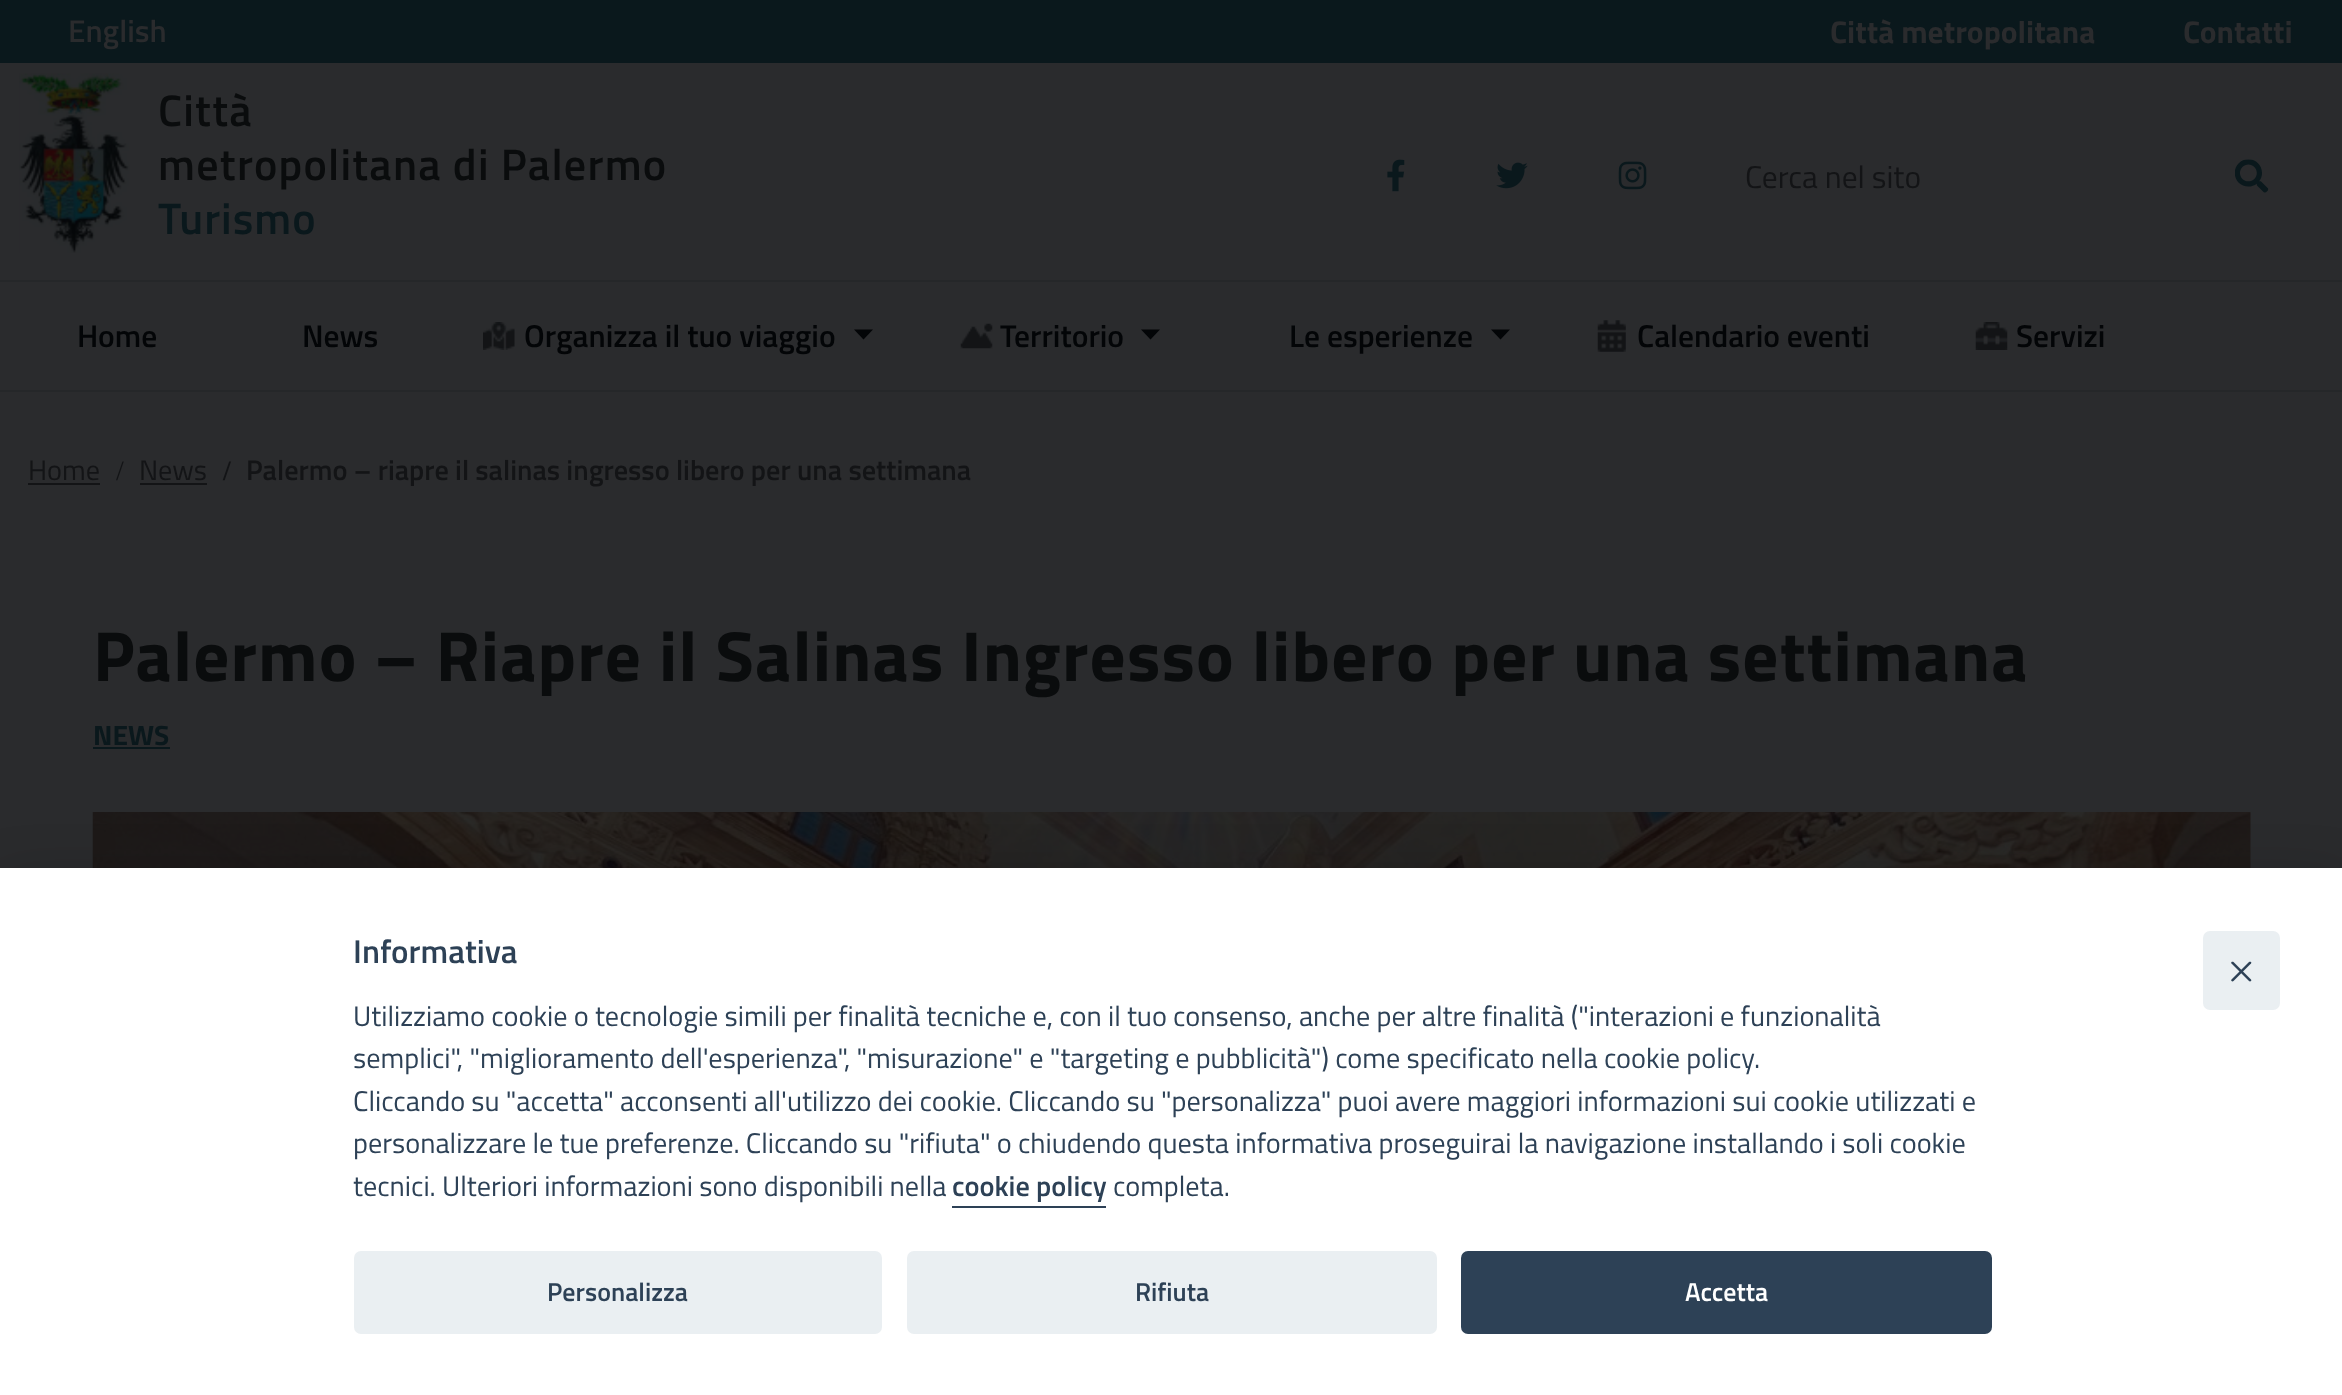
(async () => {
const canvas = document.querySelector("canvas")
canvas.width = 2342
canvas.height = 1395
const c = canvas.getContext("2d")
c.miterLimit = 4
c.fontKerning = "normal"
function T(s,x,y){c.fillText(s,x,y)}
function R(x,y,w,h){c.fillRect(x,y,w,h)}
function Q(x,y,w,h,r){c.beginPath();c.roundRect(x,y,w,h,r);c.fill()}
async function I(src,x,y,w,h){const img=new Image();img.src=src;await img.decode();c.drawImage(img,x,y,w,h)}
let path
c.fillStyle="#2a2b2d"
R(0,0,2342,1395)
c.fillStyle="#0a181c"
R(0,0,2342,63)
c.font="600 31.5px Titillium Web"
c.fillStyle="#2a2b2d"
T("English",68,42)
c.font="bold 31.5px Titillium Web"
T("Città metropolitana",1830,43)
T("Contatti",2183,43)
await I("1.png",19,73,111,180)
c.letterSpacing="1.25px"
c.font="600 44.1px Titillium Web"
c.fillStyle="#0a0c0d"
T("Città",158,126)
T("metropolitana di Palermo",158,180)
c.letterSpacing="1px"
c.fillStyle="#0a181c"
T("Turismo",158,234)
await I("2.png",1387,159,18,33)
await I("3.png",1496,162,32,27)
await I("4.png",1618,161,29,29)
c.letterSpacing="0px"
c.font="31.5px Titillium Web"
c.fillStyle="#131416"
T("Cerca nel sito",1745,188)
await I("5.png",2235,159,34,34)
c.fillStyle="#252729"
R(0,280,2342,2)
R(0,390,2342,2)
c.font="600 31.5px Titillium Web"
c.fillStyle="#030507"
T("Home",77,347)
T("News",302,347)
await I("6.png",483,322,32,28)
T("Organizza il tuo viaggio",524,347)
path = new Path2D("M873 329.5l-9.5 10l-9.5-10z")
c.fill(path)
await I("7.png",960,323,33,26)
T("Territorio",1000,347)
path = new Path2D("M1160 329.5l-9.5 10l-9.5-10z")
c.fill(path)
T("Le esperienze",1289,347)
path = new Path2D("M1510 329.5l-9.5 10l-9.5-10z")
c.fill(path)
await I("8.png",1597,320,29,32)
T("Calendario eventi",1637,347)
await I("9.png",1975,322,33,28)
T("Servizi",2016,347)
c.font="28.35px Titillium Web"
c.fillStyle="#131416"
T("Home",28,480)
R(28,483,72,2)
c.font="28px Liberation Serif"
T("/",116,480)
c.font="28.35px Titillium Web"
T("News",139,480)
R(140,483,67,2)
c.font="bold 28px Liberation Serif"
T("/",223,480)
c.font="600 28.35px Titillium Web"
T("Palermo – riapre il salinas ingresso libero per una settimana",246,480)
c.letterSpacing="1.15px"
c.font="bold 70.9px Titillium Web"
c.fillStyle="#0a0c0d"
T("Palermo – Riapre il Salinas Ingresso libero per una settimana",93,681)
c.letterSpacing="0px"
c.font="bold 28px Titillium Web"
c.fillStyle="#0a181c"
T("NEWS",93,745)
R(93,747,77,2)
await I("10.png",92,812,2159,56)
c.fillStyle="#02020347"
c.filter="blur(29.5px)"
c.beginPath()
c.rect(0,887,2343,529)
c.fill()
c.filter="none"
c.fillStyle="#fff"
R(0,868,2342,527)
c.font="600 33px Titillium Web"
c.fillStyle="#2d4156"
T("Informativa",353,963)
c.font="28.35px Titillium Web"
T("Utilizziamo cookie o tecnologie simili per finalità tecniche e, con il tuo consenso, anche per altre finalità (\"interazioni e funzionalità",353,1026)
T("semplici\", \"miglioramento dell'esperienza\", \"misurazione\" e \"targeting e pubblicità\") come specificato nella cookie policy.",353,1068)
T("Cliccando su \"accetta\" acconsenti all'utilizzo dei cookie. Cliccando su \"personalizza\" puoi avere maggiori informazioni sui cookie utilizzati e",353,1111)
T("personalizzare le tue preferenze. Cliccando su \"rifiuta\" o chiudendo questa informativa proseguirai la navigazione installando i soli cookie",353,1153)
T("tecnici. Ulteriori informazioni sono disponibili nella",353,1196)
c.font="600 28.35px Titillium Web"
T("cookie policy",952,1196)
R(952,1206,154,2)
c.font="28.35px Titillium Web"
T("completa.",1113,1196)
c.fillStyle="#eaeff2"
Q(354,1251,528,83,7)
c.font="600 26px Titillium Web"
c.fillStyle="#2d4156"
T("Personalizza",547,1301)
c.fillStyle="#eaeff2"
Q(907,1251,530,83,7)
c.fillStyle="#2d4156"
T("Rifiuta",1135,1301)
Q(1461,1251,531,83,7)
c.fillStyle="#fff"
T("Accetta",1685,1301)
c.fillStyle="#eaeff2"
Q(2203,931,77,79,7)
c.fillStyle="#2d4156"
path = new Path2D("M2251 962c.5 .5 .5 1 0 1.5l-17.5 17.5c-.5 .5-1.5 .5-2 0c-.5-.5-.5-1 0-1.5l17.5-17.5c.5-.5 1.5-.5 2 0z")
c.fill(path)
path = new Path2D("M2231.5 962c.5-.5 1.5-.5 2 0l17.5 17.5c.5 .5 .5 1 0 1.5c-.5 .5-1.5 .5-2 0l-17.5-17.5c-.5-.5-.5-1 0-1.5z")
c.fill(path)
})()
